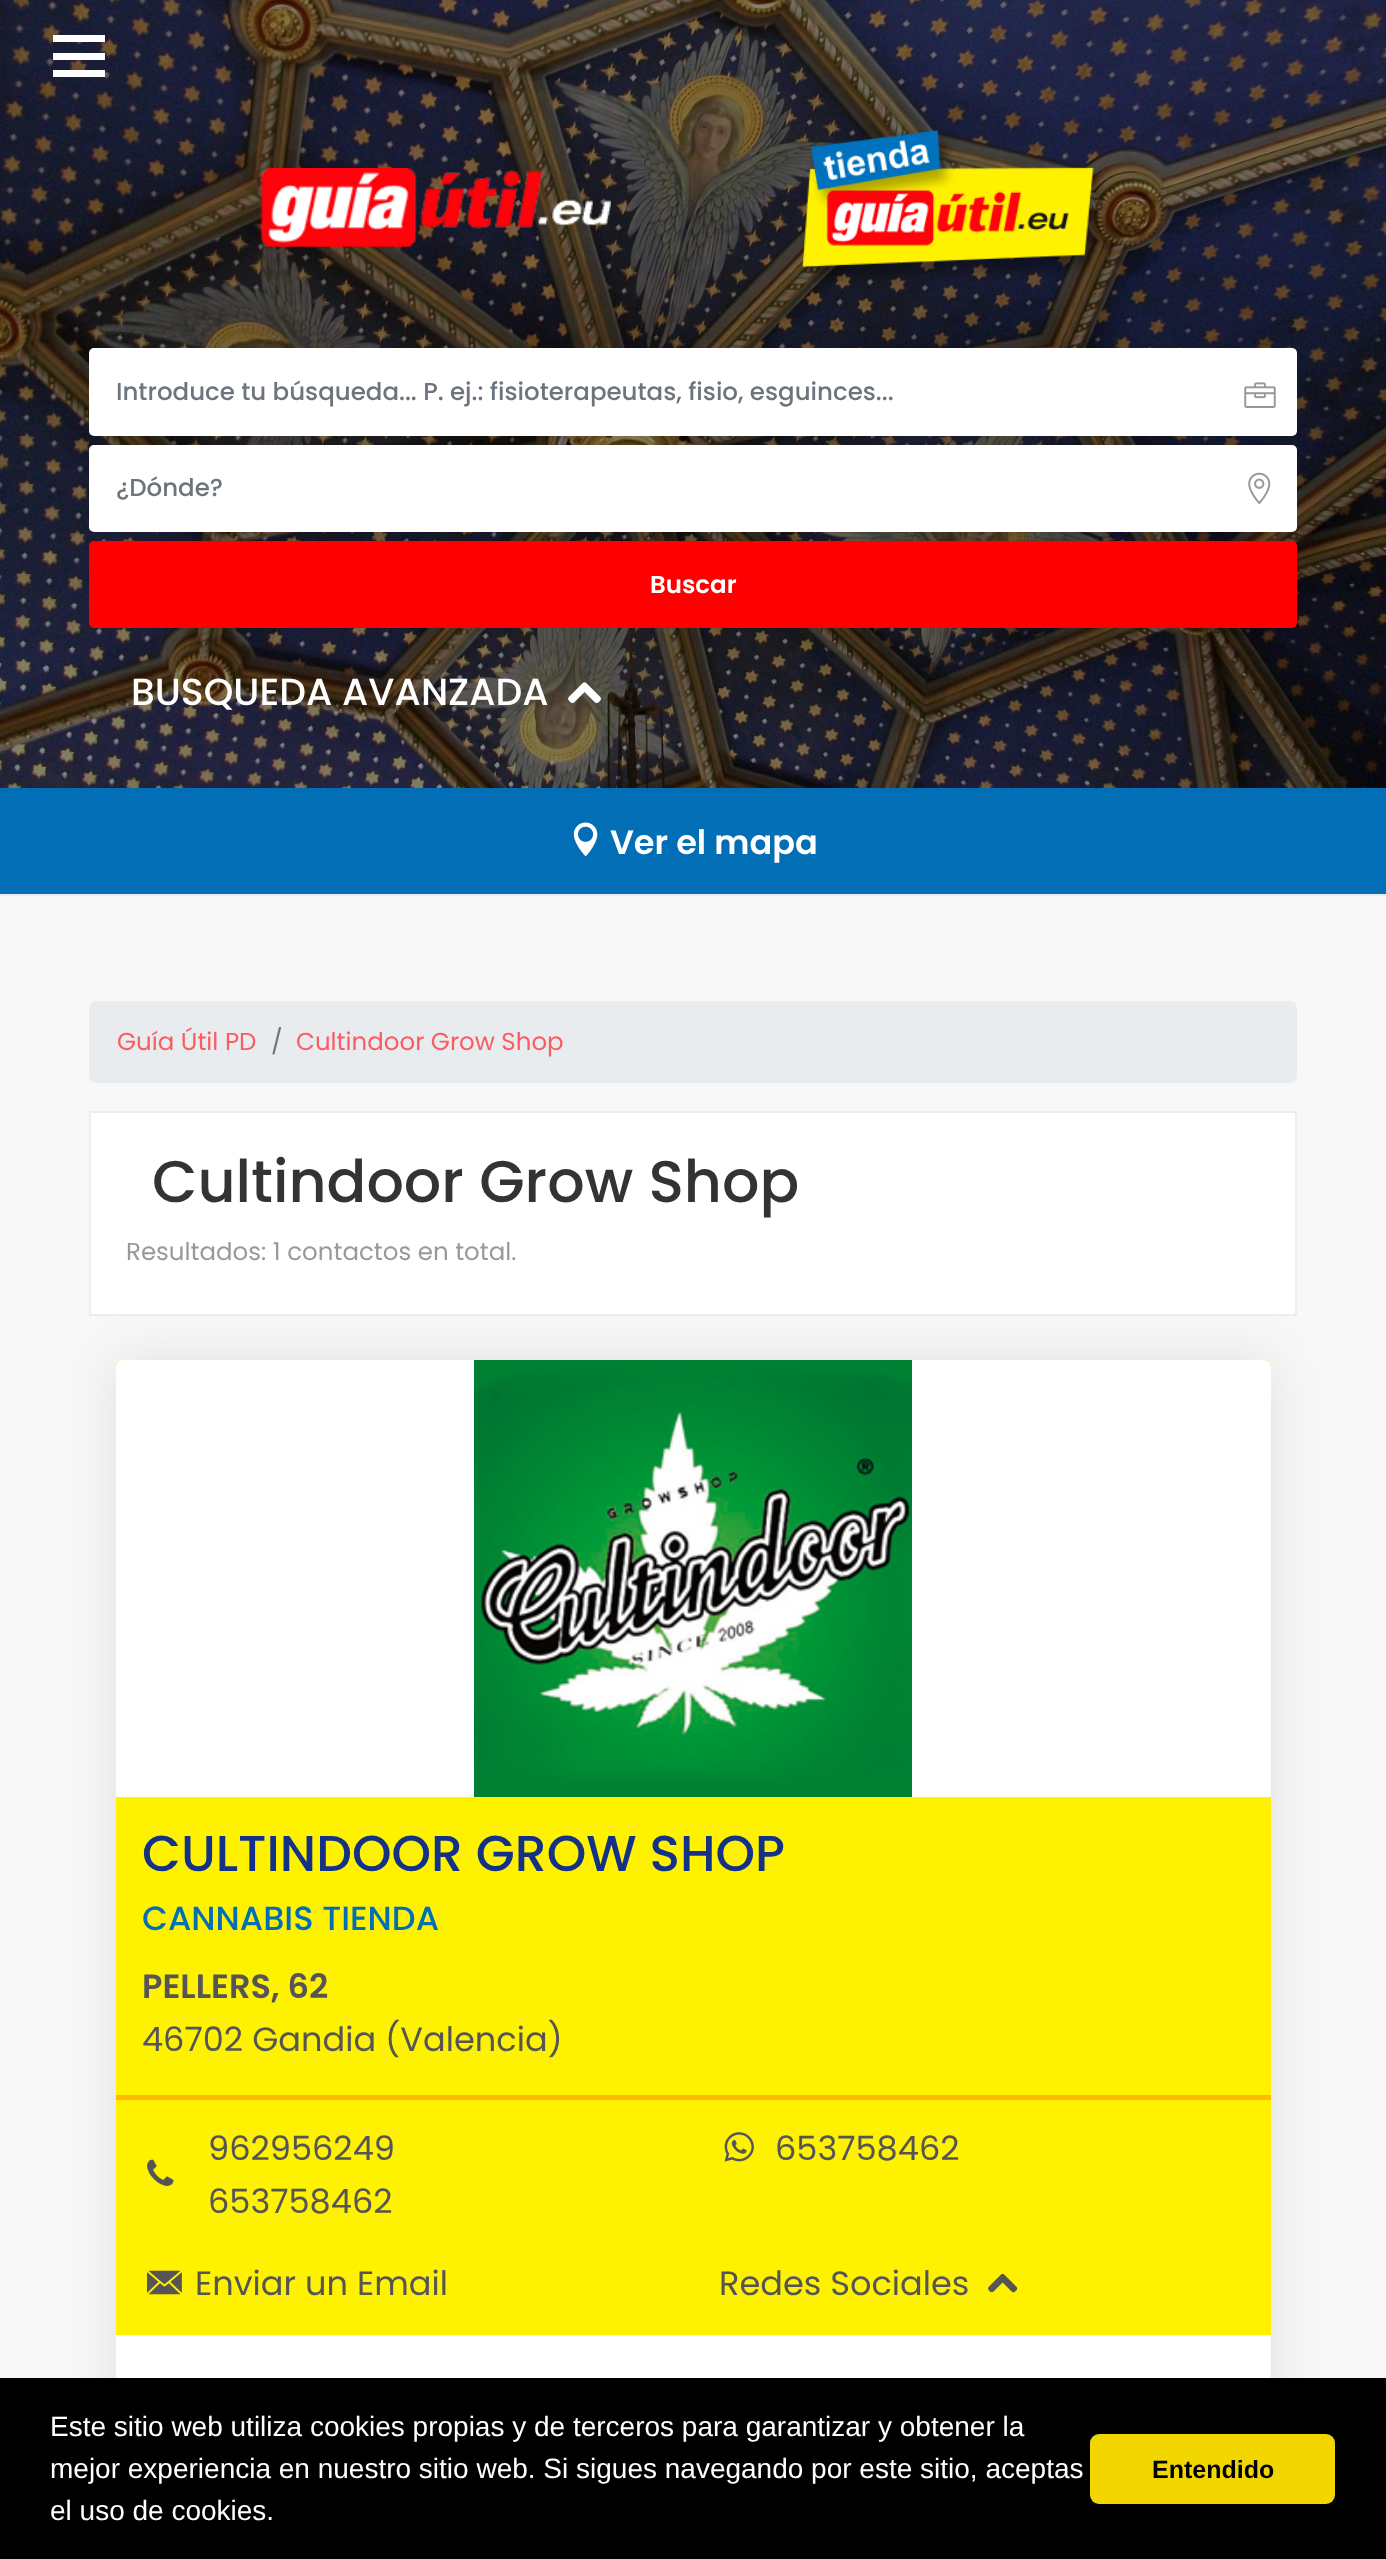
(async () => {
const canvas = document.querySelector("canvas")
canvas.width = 1386
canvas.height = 2559
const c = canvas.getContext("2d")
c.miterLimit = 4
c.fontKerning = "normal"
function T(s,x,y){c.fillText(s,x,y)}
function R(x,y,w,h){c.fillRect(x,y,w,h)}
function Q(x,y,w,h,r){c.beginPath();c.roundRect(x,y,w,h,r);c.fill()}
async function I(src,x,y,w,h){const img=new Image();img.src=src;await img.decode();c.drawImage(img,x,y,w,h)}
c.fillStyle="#f8f8f8"
R(0,0,1386,2559)
await I("1.png",0,0,1386,788)
c.fillStyle="#fff"
R(53,53,52,7)
R(53,35,52,7)
R(53,70,52,7)
await I("2.png",260,168,351,79)
await I("3.png",802,129,302,153)
Q(89,348,1208,88,5)
c.font="500 24.5px Poppins"
c.fillStyle="#6c757d"
T("Introduce tu búsqueda... P. ej.: fisioterapeutas, fisio, esguinces...",116,400)
c.fillStyle="#fff"
Q(1243,348,52,88,5)
await I("4.png",1244,382,32,26)
Q(89,445,1208,87,5)
c.fillStyle="#6c757d"
T("¿Dónde?",116,496)
c.fillStyle="#fff"
Q(1243,445,52,87,5)
await I("5.png",1248,472,23,33)
c.fillStyle="#f00"
Q(89,541,1208,87,5)
c.font="600 24.5px Poppins"
c.fillStyle="#fff"
T("Buscar",650,593)
c.font="500 37.75px Poppins"
T("BUSQUEDA AVANZADA",131,705)
await I("6.png",568,682,33,21)
c.fillStyle="#ededed"
R(0,894,1386,2)
c.fillStyle="#016eb6"
R(0,788,1386,106)
await I("7.png",573,822,25,34)
c.font="600 33.6px Poppins"
c.fillStyle="#fff"
T("Ver el mapa",610,854)
c.fillStyle="#e9ecef"
Q(89,1001,1208,82,7)
c.font="24.5px Poppins"
c.fillStyle="#fc5b62"
T("Guía Útil PD",117,1050)
c.fillStyle="#6c757d"
T("/",271,1050)
c.fillStyle="#fc5b62"
T("Cultindoor Grow Shop",296,1050)
c.fillStyle="#fff"
c.beginPath()
c.rect(90,1112,1206,203)
c.fill()
c.strokeStyle="#ededed"
c.lineWidth=2
c.stroke()
c.font="500 58.75px Poppins"
c.fillStyle="#333"
T("Cultindoor Grow Shop",152,1202)
c.font="24.5px Poppins"
c.fillStyle="#999"
T("Resultados: 1 contactos en total.",126,1260)
c.fillStyle="#0000001a"
c.filter="blur(26px)"
c.beginPath()
c.roundRect(116,1360,1155,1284,7)
c.fill()
c.filter="none"
c.fillStyle="#fff200"
Q(116,1360,1155,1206,7)
c.fillStyle="#fff"
c.beginPath()
c.roundRect(116,1360,1155,437,[7,7,0,0])
c.fill()
await I("8.png",474,1360,438,437)
c.font="500 50.4px Poppins"
c.fillStyle="#123187"
T("CULTINDOOR GROW SHOP",142,1871)
c.font="500 33.6px Poppins"
c.fillStyle="#016eb6"
T("CANNABIS TIENDA",142,1930)
c.font="600 33.6px Poppins"
c.fillStyle="#555"
T("PELLERS, 62",142,1998)
c.font="33.6px Poppins"
T("46702 Gandia (Valencia)",142,2051)
c.fillStyle="#fb0"
R(116,2095,1155,5)
await I("9.png",147,2159,27,27)
c.fillStyle="#555"
T("962956249",208,2160)
T("653758462",208,2213)
await I("10.png",724,2132,30,30)
T("653758462",775,2160)
await I("11.png",147,2270,35,25)
T("Enviar un Email",195,2295)
T("Redes Sociales",719,2295)
await I("12.png",988,2273,30,20)
c.fillStyle="#fff"
R(116,2335,1155,43)
c.fillStyle="#000"
R(0,2378,1386,181)
c.font="28px Liberation Sans"
c.fillStyle="#fff"
T("Este sitio web utiliza cookies propias y de terceros para garantizar y obtener la",50,2436)
T("mejor experiencia en nuestro sitio web. Si sigues navegando por este sitio, aceptas",50,2478)
T("el uso de cookies.",50,2520)
c.fillStyle="#f1d600"
Q(1090,2434,245,70,9)
c.font="bold 25px Liberation Sans"
c.fillStyle="#000"
T("Entendido",1152,2478)
})()
